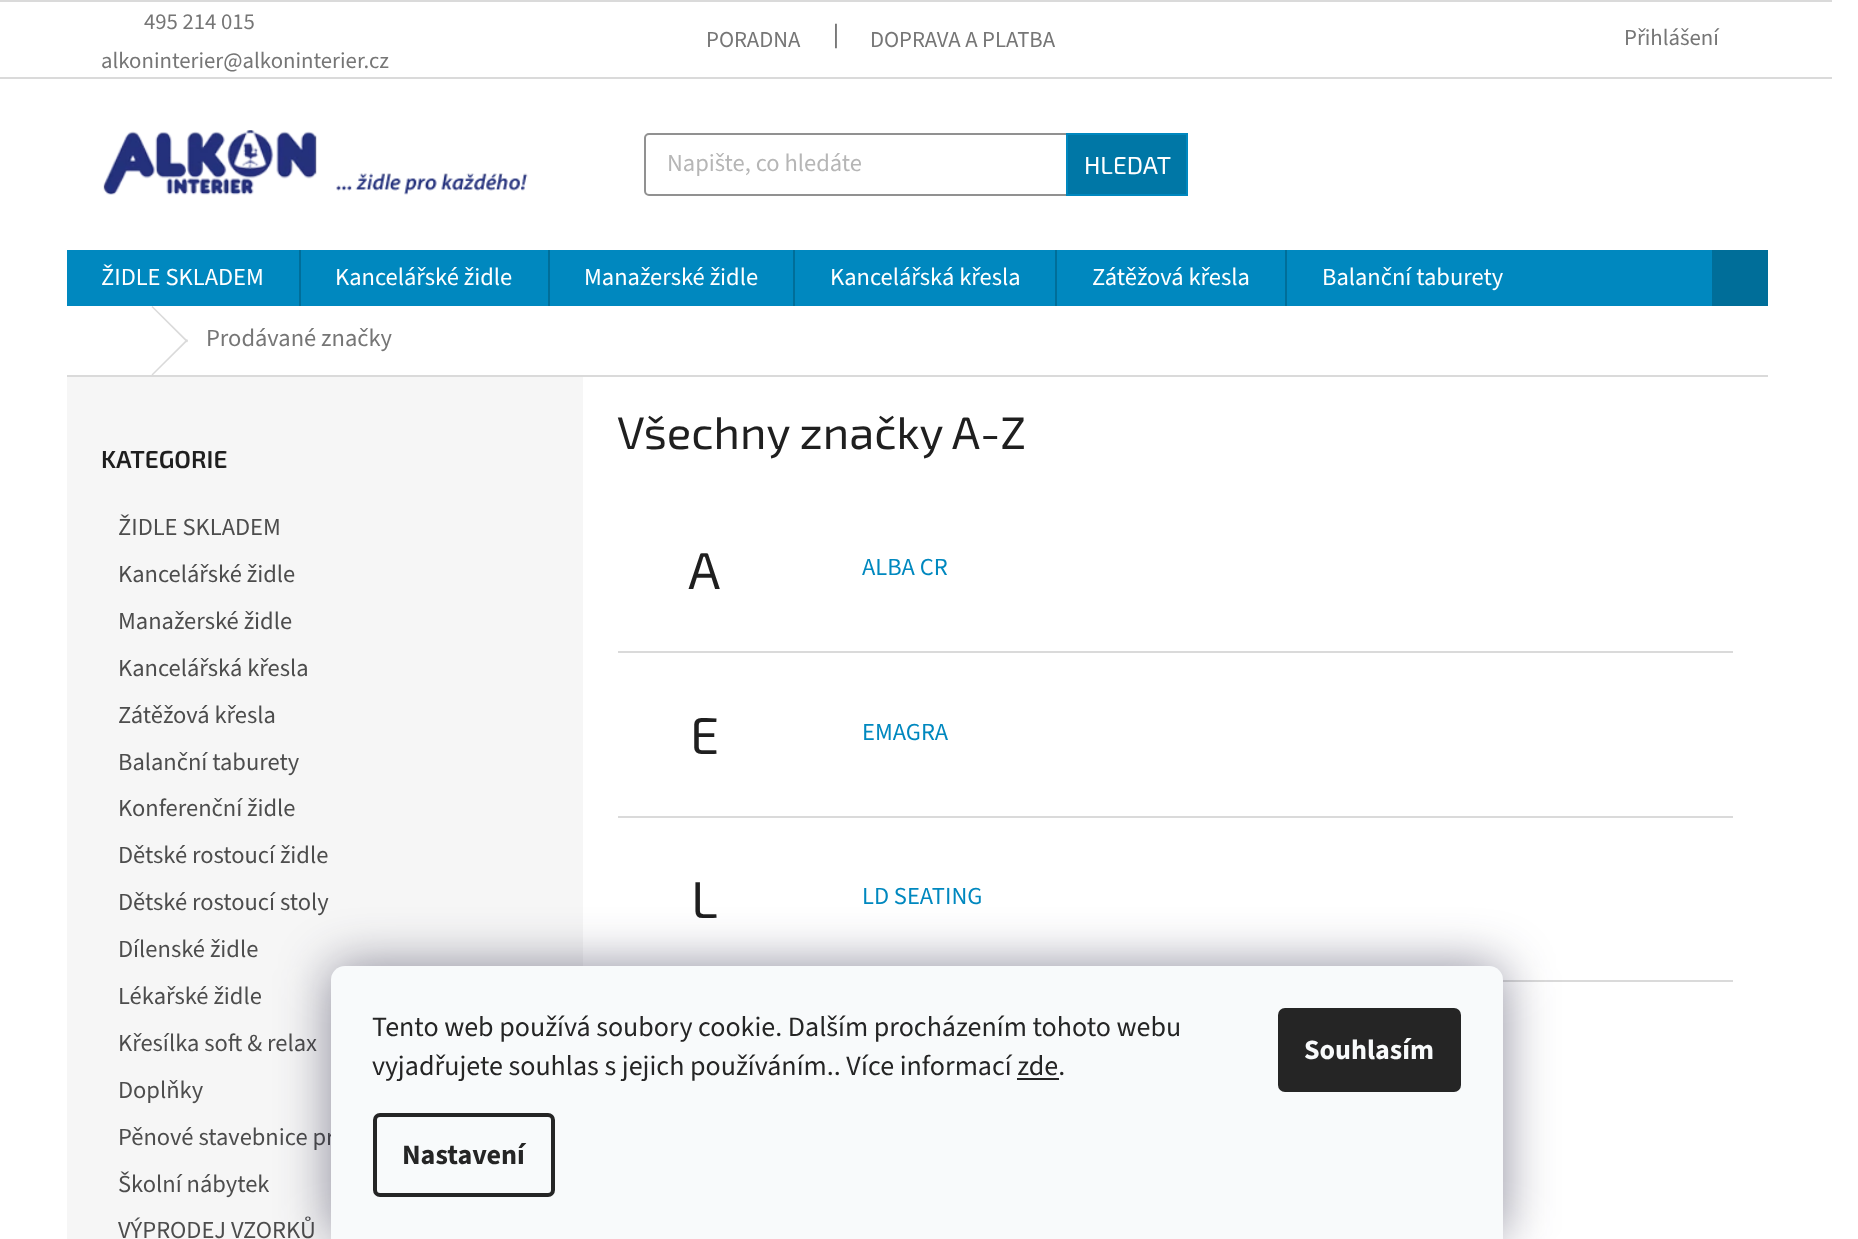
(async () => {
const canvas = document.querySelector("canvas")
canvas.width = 1858
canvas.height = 1239
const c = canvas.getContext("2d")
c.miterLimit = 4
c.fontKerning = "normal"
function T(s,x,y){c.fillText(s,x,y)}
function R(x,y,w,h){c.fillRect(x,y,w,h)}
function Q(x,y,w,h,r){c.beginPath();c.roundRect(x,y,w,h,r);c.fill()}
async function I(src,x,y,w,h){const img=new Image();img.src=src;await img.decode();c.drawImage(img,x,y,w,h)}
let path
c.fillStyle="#fff"
R(0,0,1858,1239)
c.fillStyle="#dadada"
R(0,0,1832,2)
R(0,77,1832,2)
c.font="22.75px 'Source Sans 3'"
c.fillStyle="#767676"
T("495 214 015",144,29)
T("alkoninterier@alkoninterier.cz",101,68)
T("PORADNA",706,47)
c.font="24.5px 'Source Sans 3'"
c.fillStyle="#4d4d4d"
T("|",833,42)
c.font="22.75px 'Source Sans 3'"
c.fillStyle="#767676"
T("DOPRAVA A PLATBA",870,47)
T("Přihlášení",1624,45)
await I("1.png",103,130,425,65)
c.beginPath()
c.roundRect(645,134,542,61,4)
c.strokeStyle="#919191"
c.lineWidth=2
c.stroke()
c.font="24.5px 'Source Sans 3'"
c.fillStyle="#b6b6b6"
T("Napište, co hledáte",667,171)
c.fillStyle="#0077a6"
c.beginPath()
c.rect(1067,134,120,61)
c.fill()
c.strokeStyle="#0088bf"
c.stroke()
c.font="24.5px 'Exo 2'"
c.fillStyle="#fff"
T("HLEDAT",1084,174)
c.fillStyle="#0088bf"
R(67,250,1645,56)
c.font="24.5px 'Source Sans 3'"
c.fillStyle="#fff"
T("ŽIDLE SKLADEM",101,285)
c.fillStyle="#006e99"
R(299,250,2,56)
c.fillStyle="#fff"
T("Kancelářské židle",335,285)
c.fillStyle="#006e99"
R(548,250,2,56)
c.fillStyle="#fff"
T("Manažerské židle",584,285)
c.fillStyle="#006e99"
R(793,250,2,56)
c.fillStyle="#fff"
T("Kancelářská křesla",830,285)
c.fillStyle="#006e99"
R(1055,250,2,56)
c.fillStyle="#fff"
T("Zátěžová křesla",1092,285)
c.fillStyle="#006e99"
R(1285,250,2,56)
c.fillStyle="#fff"
T("Balanční taburety",1322,285)
c.fillStyle="#006e99"
R(1712,250,56,56)
c.fillStyle="#dadada"
R(67,375,1701,2)
path = new Path2D("M151.5 307l1-1l35.5 35l-1 1.5z")
c.fill(path)
path = new Path2D("M187 339l1 1.5l-35.5 35l-1-1z")
c.fill(path)
c.fillStyle="#767676"
T("Prodávané značky",206,346)
c.fillStyle="#f6f6f6"
R(67,377,516,862)
c.font="600 24.5px 'Exo 2'"
c.fillStyle="#1f1f1f"
T("KATEGORIE",101,468)
c.font="24.5px 'Source Sans 3'"
c.fillStyle="#4d4d4d"
T("ŽIDLE SKLADEM",118,535)
T("Kancelářské židle",118,582)
T("Manažerské židle",118,629)
T("Kancelářská křesla",118,676)
T("Zátěžová křesla",118,723)
T("Balanční taburety",118,770)
T("Konferenční židle",118,816)
T("Dětské rostoucí židle",118,863)
T("Dětské rostoucí stoly",118,910)
T("Dílenské židle",118,957)
T("Lékařské židle",118,1004)
T("Křesílka soft & relax",118,1051)
T("Doplňky",118,1098)
T("Pěnové stavebnice pr",118,1145)
T("Školní nábytek",118,1192)
T("VÝPRODEJ VZORKŮ",118,1238)
c.font="45.5px 'Exo 2'"
c.fillStyle="#1f1f1f"
T("Všechny značky A-Z",617,449)
c.fillStyle="#dadada"
R(618,651,1115,2)
c.font="52px 'Exo 2'"
c.fillStyle="#1f1f1f"
T("A",688,589)
c.font="24.5px 'Source Sans 3'"
c.fillStyle="#0088bf"
T("ALBA CR",862,575)
c.fillStyle="#dadada"
R(618,816,1115,2)
c.font="52px 'Exo 2'"
c.fillStyle="#1f1f1f"
T("E",690,754)
c.font="24.5px 'Source Sans 3'"
c.fillStyle="#0088bf"
T("EMAGRA",862,740)
c.fillStyle="#dadada"
R(1503,980,230,2)
c.font="52px 'Exo 2'"
c.fillStyle="#1f1f1f"
T("L",691,918)
c.font="24.5px 'Source Sans 3'"
c.fillStyle="#0088bf"
T("LD SEATING",862,904)
c.fillStyle="#1b193980"
c.filter="blur(26px)"
c.beginPath()
c.roundRect(331,966,1172,273,14)
c.fill()
c.filter="none"
c.fillStyle="#f8fafb"
c.beginPath()
c.roundRect(331,966,1172,273,[14,14,0,0])
c.fill()
c.font="28px 'Source Sans 3'"
c.fillStyle="#252525"
T("Tento web používá soubory cookie. Dalším procházením tohoto webu",372,1036)
T("vyjadřujete souhlas s jejich používáním.. Více informací zde.",372,1075)
R(1017,1078,42,2)
c.beginPath()
c.roundRect(375,1115,178,80,5)
c.strokeStyle="#252525"
c.lineWidth=4
c.stroke()
c.font="bold 28px 'Source Sans 3'"
T("Nastavení",402,1164)
Q(1278,1008,183,84,7)
c.fillStyle="#f8fafb"
T("Souhlasím",1304,1059)
})()
